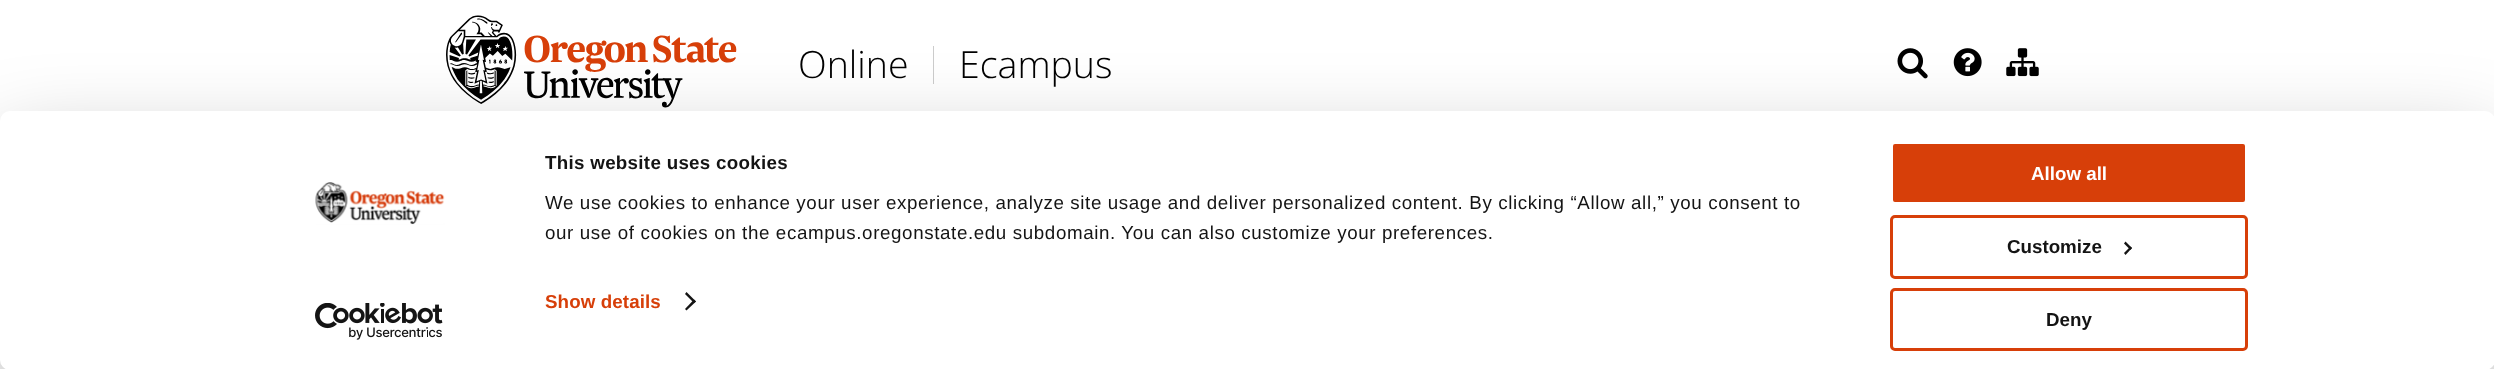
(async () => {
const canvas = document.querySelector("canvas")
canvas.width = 2494
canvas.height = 369
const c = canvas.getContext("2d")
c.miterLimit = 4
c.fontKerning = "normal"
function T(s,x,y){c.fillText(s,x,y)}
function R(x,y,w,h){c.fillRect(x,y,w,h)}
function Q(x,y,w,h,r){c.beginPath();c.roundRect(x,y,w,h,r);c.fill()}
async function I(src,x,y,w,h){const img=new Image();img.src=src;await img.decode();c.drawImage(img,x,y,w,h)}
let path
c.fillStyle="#fff"
R(0,0,2494,369)
await I("1.png",446,15,291,93)
c.font="300 37.5px Open Sans"
c.fillStyle="#000"
T("Online",798,78)
c.fillStyle="#ccc"
R(933,46,1,38)
c.fillStyle="#000"
T("Ecampus",959,78)
await I("2.png",1897,48,31,31)
await I("3.png",1953,48,29,29)
await I("4.png",2006,48,33,29)
c.fillStyle="#0000004d"
c.filter="blur(44px)"
c.beginPath()
c.roundRect(0,149,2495,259,10)
c.fill()
c.filter="none"
c.fillStyle="#fff"
Q(0,111,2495,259,10)
await I("5.png",315,182,130,43)
await I("6.png",315,303,128,37)
c.letterSpacing="0.3px"
c.font="bold 18.75px Liberation Sans"
c.fillStyle="#141414"
T("This website uses cookies",545,169)
c.letterSpacing="0.62px"
c.font="18.75px Liberation Sans"
T("We use cookies to enhance your user experience, analyze site usage and deliver personalized content. By clicking “Allow all,” you consent to",545,209)
T("our use of cookies on the ecampus.oregonstate.edu subdomain. You can also customize your preferences.",545,239)
c.letterSpacing="0.1px"
c.font="bold 18.75px Liberation Sans"
c.fillStyle="#d73f09"
T("Show details",545,308)
c.fillStyle="#141414"
path = new Path2D("M686.5 292l9.5 9.5l-2 1.5l-9-9z")
c.fill(path)
path = new Path2D("M694 299.5l2 2l-9.5 9l-1.5-1.5z")
c.fill(path)
c.fillStyle="#d73f09"
c.beginPath()
c.roundRect(1891.5,142.5,355,61,3.5)
c.fill()
c.strokeStyle="#fff"
c.lineWidth=3
c.stroke()
c.letterSpacing="0px"
c.fillStyle="#fff"
T("Allow all",2031,180)
c.beginPath()
c.roundRect(1891.5,216.5,355,61,3.5)
c.strokeStyle="#d73f09"
c.stroke()
c.fillStyle="#141414"
T("Customize",2007,253)
path = new Path2D("M2125.5 241.5l6.5 6.5l-1.5 2l-6.5-6.5z")
c.fill(path)
path = new Path2D("M2130.5 246.5l1.5 1.5l-6.5 7l-1.5-2z")
c.fill(path)
c.beginPath()
c.roundRect(1891.5,289.5,355,60,3.5)
c.stroke()
T("Deny",2046,326)
})()
